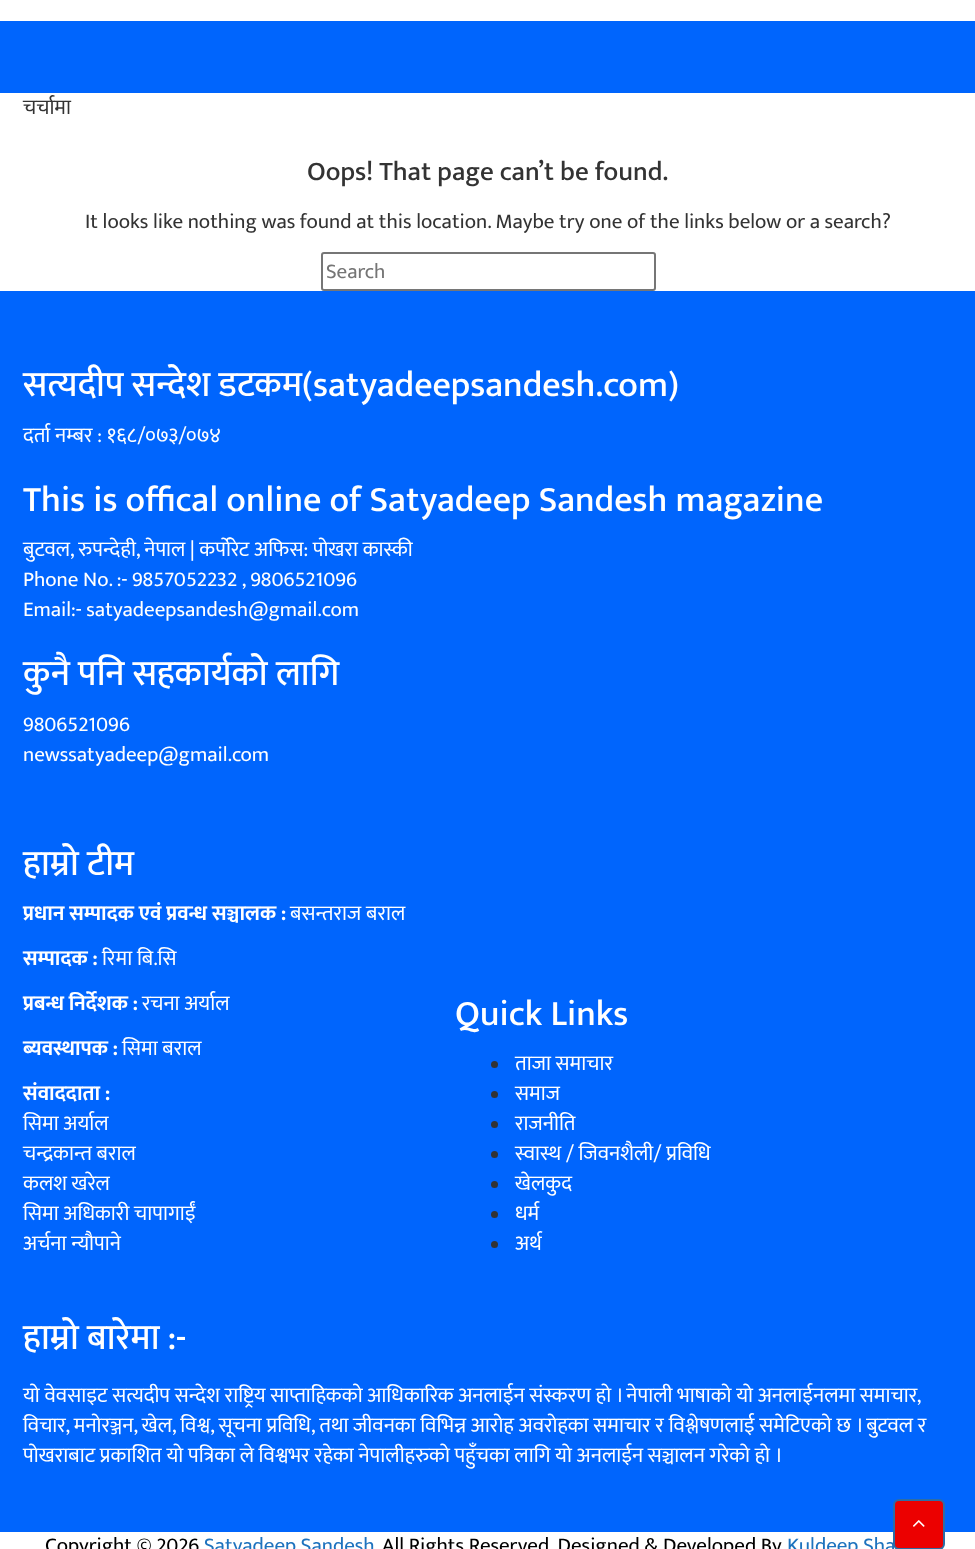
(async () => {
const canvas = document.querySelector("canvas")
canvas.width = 975
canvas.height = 1549
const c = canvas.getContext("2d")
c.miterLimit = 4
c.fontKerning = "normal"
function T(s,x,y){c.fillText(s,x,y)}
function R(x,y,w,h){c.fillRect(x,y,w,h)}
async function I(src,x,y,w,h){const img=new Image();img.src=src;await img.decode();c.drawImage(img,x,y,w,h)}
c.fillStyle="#fff"
R(0,0,975,1549)
c.fillStyle="#0065fd"
R(0,21,975,72)
c.font="21px Mukta"
c.fillStyle="#333"
T("चर्चामा",23,114)
c.font="500 27px Mukta"
T("Oops! That page can’t be found.",307,180)
c.font="21px Mukta"
T("It looks like nothing was found at this location. Maybe try one of the links below or a search?",85,228)
c.beginPath()
c.roundRect(322,253,333,37,2)
c.strokeStyle="#767676"
c.lineWidth=2
c.stroke()
c.fillStyle="#757575"
T("Search",326,278)
c.fillStyle="#0065fd"
R(0,291,975,1241)
c.font="500 36px Mukta"
c.fillStyle="#fff"
T("सत्यदीप सन्देश डटकम(satyadeepsandesh.com)",23,396)
c.font="21px Mukta"
T("दर्ता नम्बर : १६८/०७३/०७४",23,442)
c.font="500 36px Mukta"
T("This is offical online of Satyadeep Sandesh magazine",23,511)
c.font="21px Mukta"
T("बुटवल, रुपन्देही, नेपाल | कर्पोरेट अफिस: पोखरा कास्की",23,556)
T("Phone No. :- 9857052232 , 9806521096",23,586)
T("Email:- satyadeepsandesh@gmail.com",23,616)
c.font="500 36px Mukta"
T("कुनै पनि सहकार्यको लागि",23,685)
c.font="21px Mukta"
T("9806521096",23,731)
T("newssatyadeep@gmail.com",23,761)
c.font="500 36px Mukta"
T("हाम्रो टीम",23,875)
c.font="bold 21px Mukta"
T("प्रधान सम्पादक एवं प्रवन्ध सञ्चालक :",23,920)
c.font="21px Mukta"
T("बसन्तराज बराल",290,920)
c.font="bold 21px Mukta"
T("सम्पादक :",23,965)
c.font="21px Mukta"
T("रिमा बि.सि",102,965)
c.font="bold 21px Mukta"
T("प्रबन्ध निर्देशक :",23,1010)
c.font="21px Mukta"
T("रचना अर्याल",142,1010)
c.font="bold 21px Mukta"
T("ब्यवस्थापक :",23,1055)
c.font="21px Mukta"
T("सिमा बराल",122,1055)
c.font="bold 21px Mukta"
T("संवाददाता :",23,1100)
c.font="21px Mukta"
T("सिमा अर्याल",23,1130)
T("चन्द्रकान्त बराल",23,1160)
T("कलश खरेल",23,1190)
T("सिमा अधिकारी चापागाईं",23,1220)
T("अर्चना न्यौपाने",23,1250)
c.font="500 36px Mukta"
T("Quick Links",455,1025)
c.fillStyle="#333"
c.beginPath()
c.arc(494.5,1064.5,3.5,0,7)
c.fill()
c.font="21px Mukta"
c.fillStyle="#fff"
T("ताजा समाचार",515,1070)
c.fillStyle="#333"
c.beginPath()
c.arc(494.5,1094.5,3.5,0,7)
c.fill()
c.fillStyle="#fff"
T("समाज",515,1100)
c.fillStyle="#333"
c.beginPath()
c.arc(494.5,1124.5,3.5,0,7)
c.fill()
c.fillStyle="#fff"
T("राजनीति",515,1130)
c.fillStyle="#333"
c.beginPath()
c.arc(494.5,1154.5,3.5,0,7)
c.fill()
c.fillStyle="#fff"
T("स्वास्थ / जिवनशैली/ प्रविधि",515,1160)
c.fillStyle="#333"
c.beginPath()
c.arc(494.5,1184.5,3.5,0,7)
c.fill()
c.fillStyle="#fff"
T("खेलकुद",515,1190)
c.fillStyle="#333"
c.beginPath()
c.arc(494.5,1214.5,3.5,0,7)
c.fill()
c.fillStyle="#fff"
T("धर्म",515,1220)
c.fillStyle="#333"
c.beginPath()
c.arc(494.5,1244.5,3.5,0,7)
c.fill()
c.fillStyle="#fff"
T("अर्थ",515,1250)
c.font="500 36px Mukta"
T("हाम्रो बारेमा :-",23,1349)
c.font="21px Mukta"
T("यो वेवसाइट सत्यदीप सन्देश राष्ट्रिय साप्ताहिकको आधिकारिक अनलाईन संस्करण हो । नेपाली भाषाको यो अनलाईनलमा समाचार,",23,1402)
T("विचार, मनोरञ्जन, खेल, विश्व, सूचना प्रविधि, तथा जीवनका विभिन्न आरोह अवरोहका समाचार र विश्लेषणलाई समेटिएको छ । बुटवल र",23,1432)
T("पोखराबाट प्रकाशित यो पत्रिका ले विश्वभर रहेका नेपालीहरुको पहुँचका लागि यो अनलाईन सञ्चालन गरेको हो ।",23,1462)
c.fillStyle="#000"
T("Copyright © 2026",45,1552)
c.fillStyle="#1e73be"
T("Satyadeep Sandesh",204,1552)
c.fillStyle="#000"
T("All Rights Reserved. Designed & Developed By",382,1552)
c.fillStyle="#1e73be"
T("Kuldeep Sha",787,1552)
c.fillStyle="#ec0000"
c.beginPath()
c.roundRect(894,1500,50,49,5)
c.fill()
c.strokeStyle="#2e6da4"
c.stroke()
await I("1.png",913,1520,12,7)
})()
